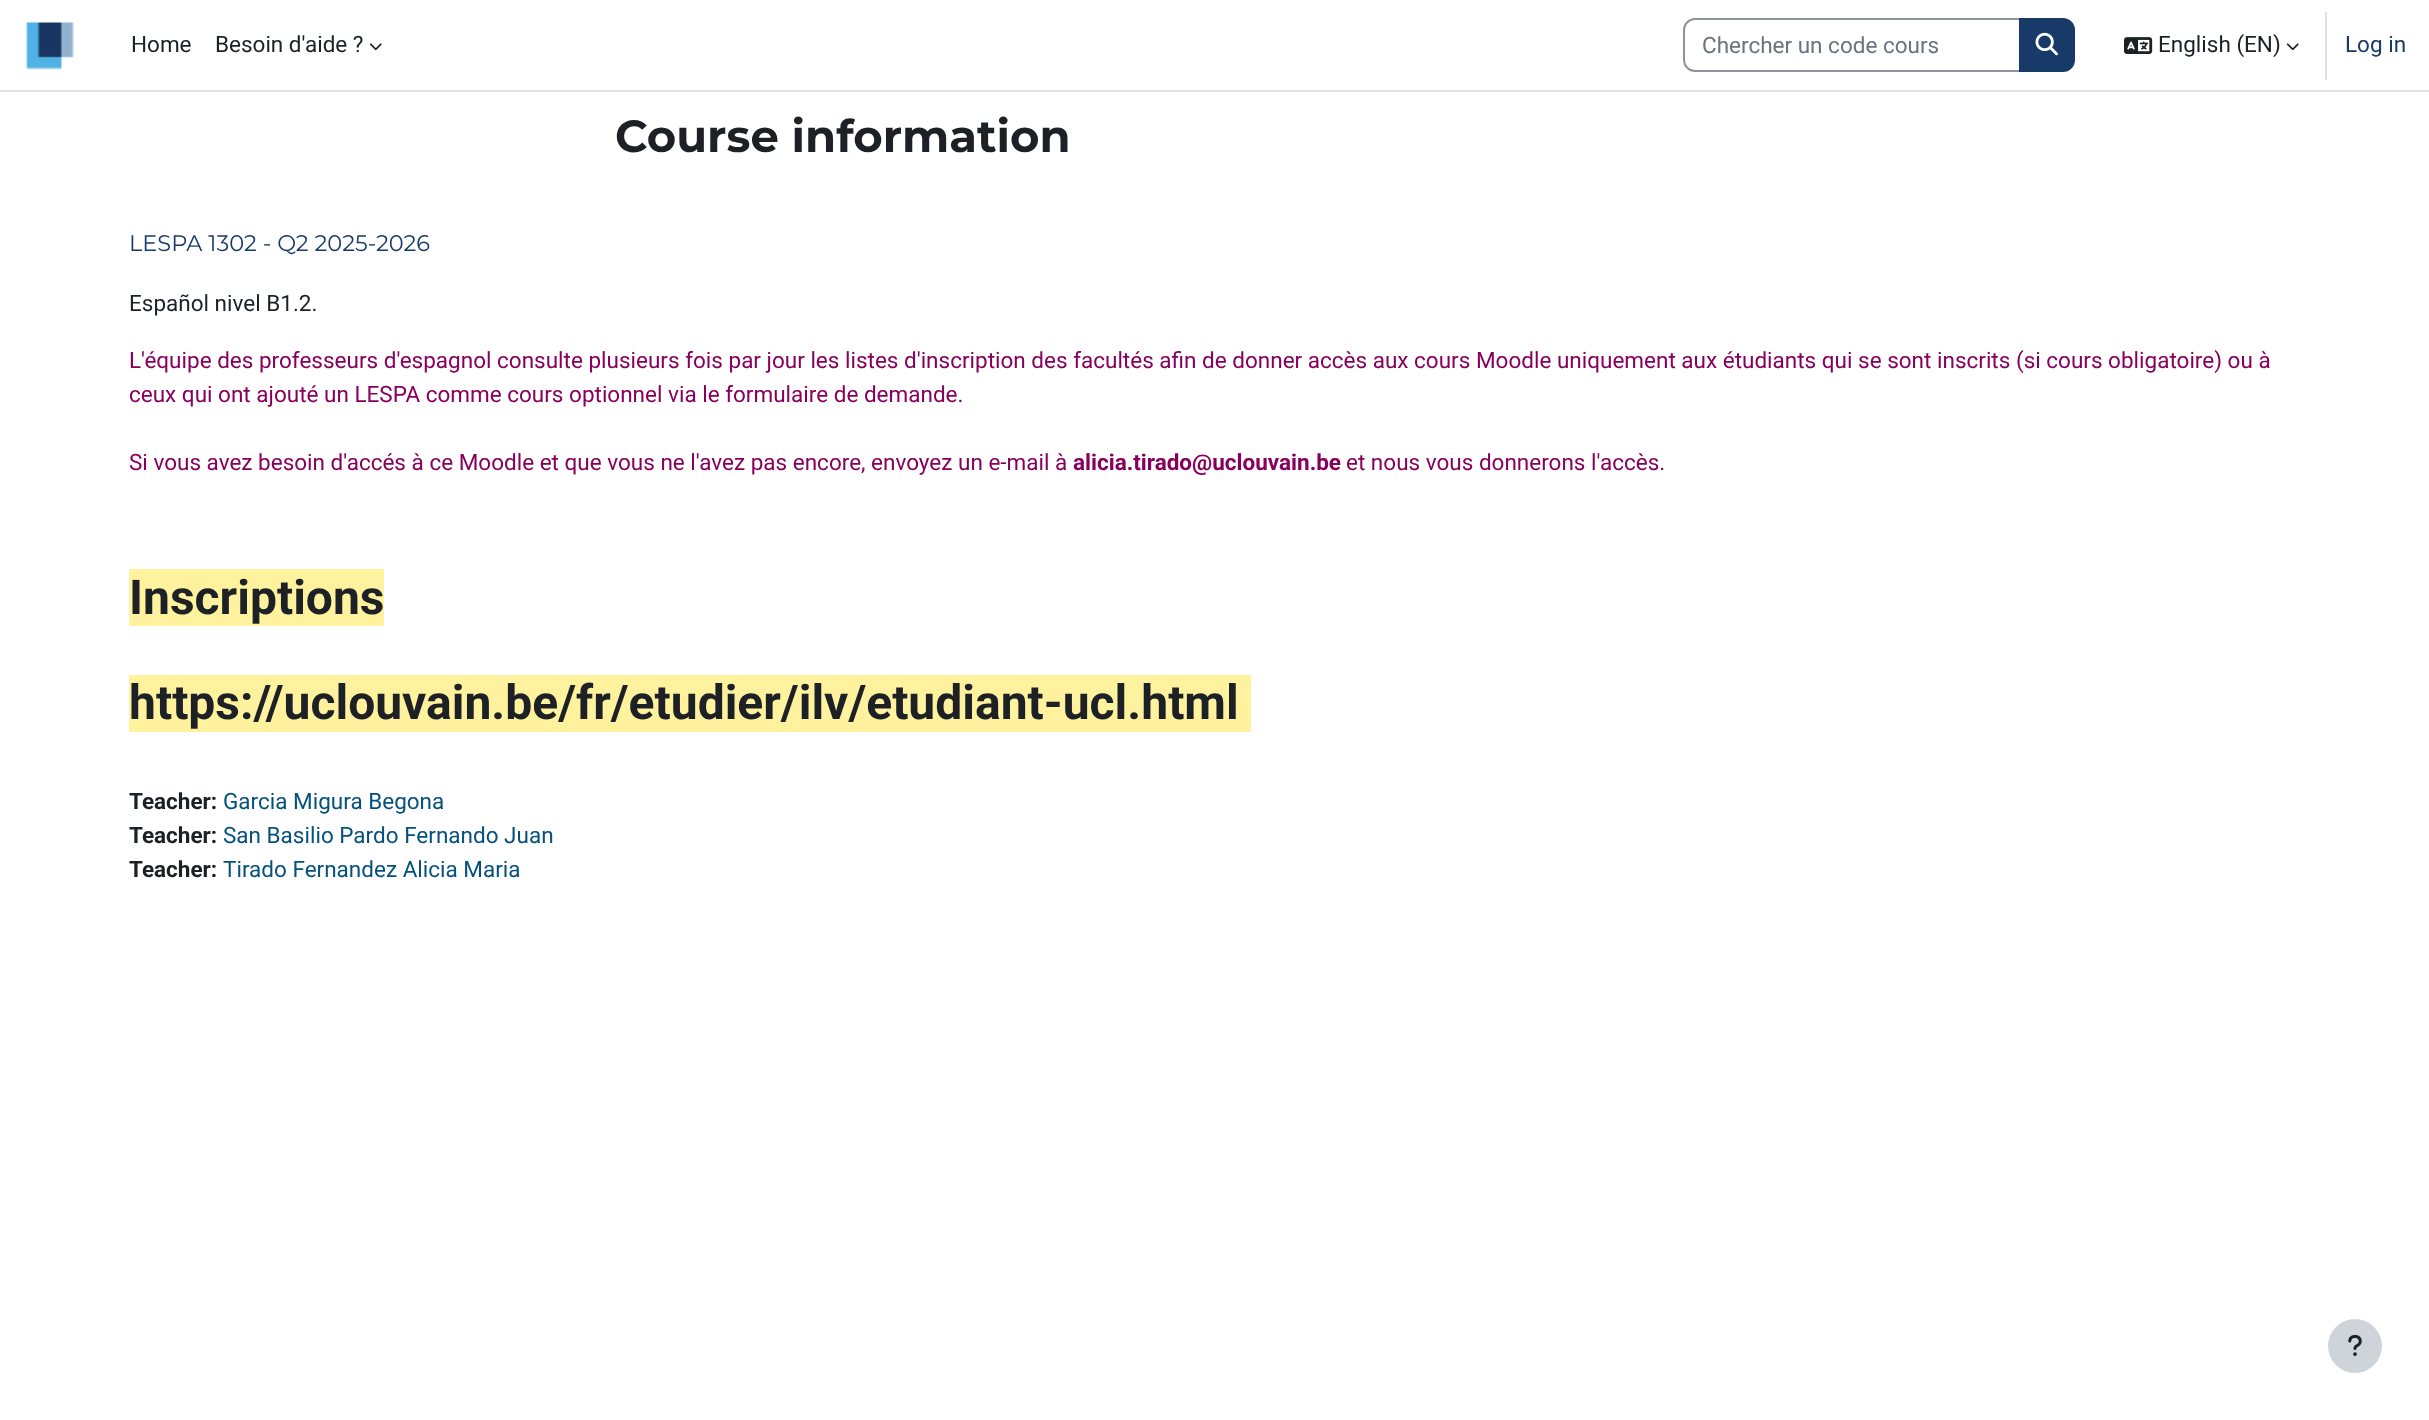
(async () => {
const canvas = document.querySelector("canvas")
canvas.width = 2429
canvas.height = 1420
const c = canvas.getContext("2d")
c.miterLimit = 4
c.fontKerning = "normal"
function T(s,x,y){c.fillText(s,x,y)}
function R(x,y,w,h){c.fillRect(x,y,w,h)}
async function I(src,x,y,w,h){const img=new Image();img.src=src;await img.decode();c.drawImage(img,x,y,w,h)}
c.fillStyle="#fff"
R(0,0,2429,1420)
c.fillStyle="#dee2e6"
R(0,90,2429,2)
await I("1.png",25,22,49,48)
c.font="22.5px Roboto"
c.fillStyle="#1d2125"
T("Home",131,52)
T("Besoin d'aide ?",215,52)
await I("2.png",369,43,13,8)
c.beginPath()
c.roundRect(1684,19,336,52,[11,0,0,11])
c.strokeStyle="#8f959e"
c.lineWidth=2
c.stroke()
c.fillStyle="#6a737b"
T("Chercher un code cours",1702,53)
c.fillStyle="#173a69"
c.beginPath()
c.roundRect(2020,19,54,52,[0,11,11,0])
c.fill()
c.strokeStyle="#173a69"
c.stroke()
await I("3.png",2035,32,23,24)
await I("4.png",2124,37,29,17)
c.fillStyle="#1d2125"
T("English (EN)",2158,52)
await I("2.png",2286,43,13,8)
c.fillStyle="#dee2e6"
R(2325,12,2,68)
c.fillStyle="#173a69"
T("Log in",2345,52)
c.font="bold 45px Montserrat"
c.fillStyle="#1d2125"
T("Course information",615,152)
c.font="22.5px Montserrat"
c.fillStyle="#173a69"
T("LESPA 1302 - Q2 2025-2026",129,251)
c.font="22.5px Roboto"
c.fillStyle="#1d2125"
T("Español nivel B1.2.",129,311)
c.fillStyle="#88005d"
T("L'équipe des professeurs d'espagnol consulte plusieurs fois par jour les listes d'inscription des facultés afin de donner accès aux cours Moodle uniquement aux étudiants qui se sont inscrits (si cours obligatoire) ou à",129,368)
T("ceux qui ont ajouté un LESPA comme cours optionnel via le formulaire de demande.",129,402)
T("Si vous avez besoin d'accés à ce Moodle et que vous ne l'avez pas encore, envoyez un e-mail à",129,470)
c.font="bold 22.5px Roboto"
T("alicia.tirado@uclouvain.be",1073,470)
c.font="22.5px Roboto"
T("et nous vous donnerons l'accès.",1346,470)
c.fillStyle="#fff29e"
R(129,569,255,57)
c.font="bold 48px Roboto"
c.fillStyle="#1d2125"
T("Inscriptions",129,614)
c.fillStyle="#fff29e"
R(129,675,1122,57)
c.fillStyle="#1d2125"
T("https://uclouvain.be/fr/etudier/ilv/etudiant-ucl.html",129,719)
c.font="bold 22.5px Roboto"
T("Teacher:",129,809)
c.font="22.5px Roboto"
c.fillStyle="#05517e"
T("Garcia Migura Begona",223,809)
c.font="bold 22.5px Roboto"
c.fillStyle="#1d2125"
T("Teacher:",129,843)
c.font="22.5px Roboto"
c.fillStyle="#05517e"
T("San Basilio Pardo Fernando Juan",223,843)
c.font="bold 22.5px Roboto"
c.fillStyle="#1d2125"
T("Teacher:",129,877)
c.font="22.5px Roboto"
c.fillStyle="#05517e"
T("Tirado Fernandez Alicia Maria",223,877)
c.fillStyle="#ced4da"
c.beginPath()
c.arc(2355,1346,27,0,7)
c.fill()
await I("5.png",2348,1335,14,21)
})()
